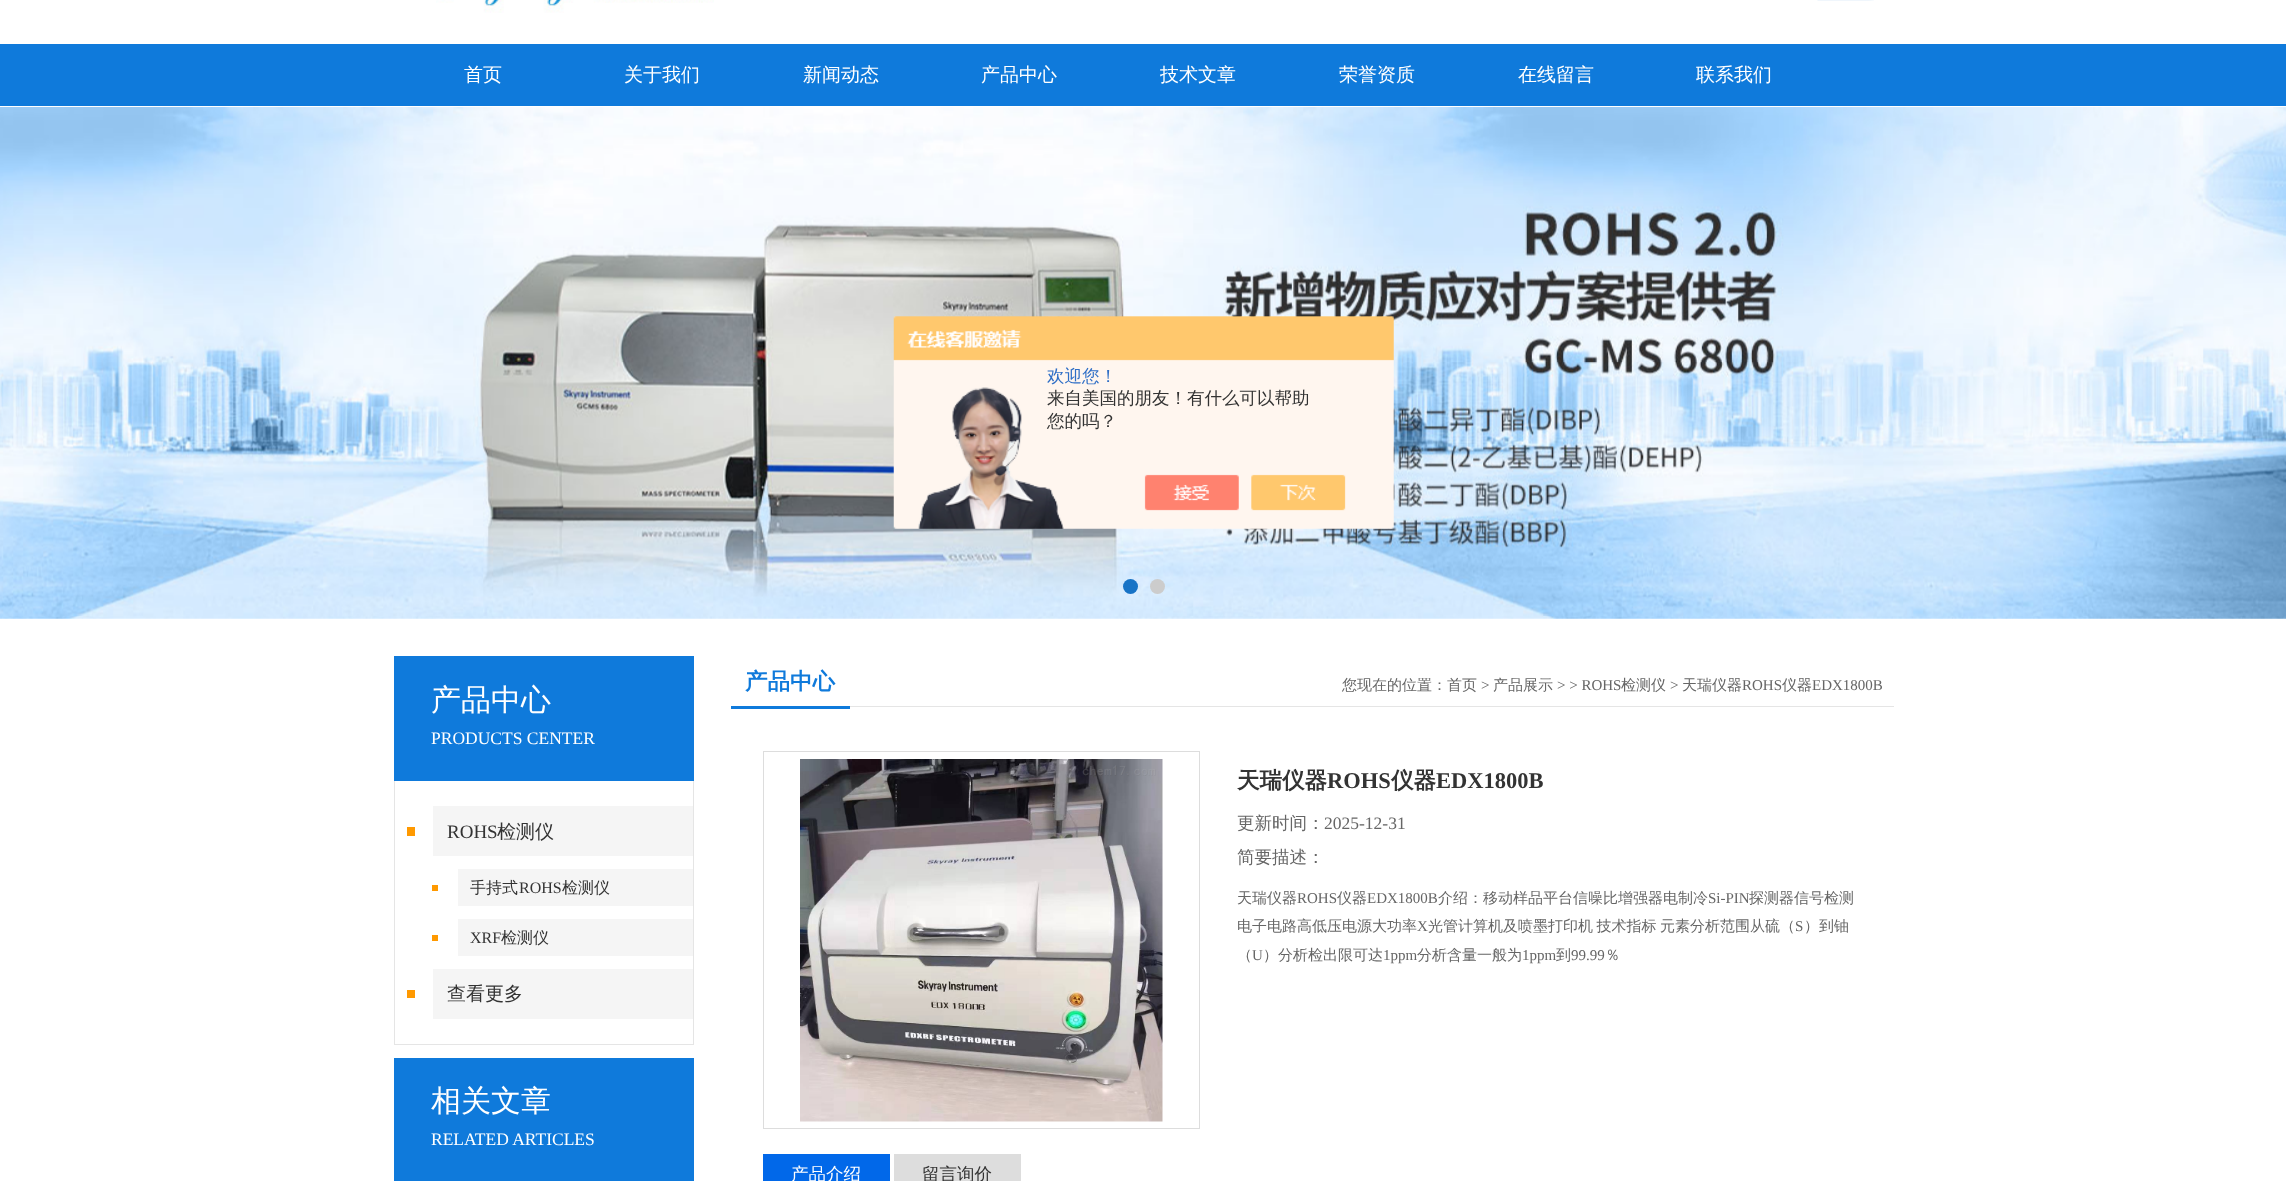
(async () => {
const canvas = document.querySelector("canvas")
canvas.width = 2286
canvas.height = 1181
const c = canvas.getContext("2d")
c.miterLimit = 4
c.fontKerning = "normal"
function T(s,x,y){c.fillText(s,x,y)}
function R(x,y,w,h){c.fillRect(x,y,w,h)}
async function I(src,x,y,w,h){const img=new Image();img.src=src;await img.decode();c.drawImage(img,x,y,w,h)}
c.fillStyle="#fff"
R(0,0,2286,1181)
await I("1.png",436,0,278,13)
await I("2.png",1817,0,57,1)
c.fillStyle="#0f7adb"
R(0,44,2286,62)
c.font="500 19px WenQuanYi Zen Hei"
c.fillStyle="#fff"
T("首页",464,81)
T("关于我们",624,81)
T("新闻动态",803,81)
T("产品中心",981,81)
T("技术文章",1160,81)
T("荣誉资质",1339,81)
T("在线留言",1518,81)
T("联系我们",1696,81)
await I("3.png",0,107,2286,512)
c.fillStyle="#1773c6"
c.beginPath()
c.arc(1130.5,586.5,7.5,0,7)
c.fill()
c.fillStyle="#ccc"
c.beginPath()
c.arc(1157.5,586.5,7.5,0,7)
c.fill()
await I("4.png",893,316,501,213)
c.font="500 17.5px WenQuanYi Zen Hei"
c.fillStyle="#2e6ec6"
T("欢迎您！",1047,382)
c.fillStyle="#333"
T("来自美国的朋友！有什么可以帮助",1047,404)
T("您的吗？",1047,427)
c.fillStyle="#0f7adb"
R(394,656,300,125)
c.font="500 30px WenQuanYi Zen Hei"
c.fillStyle="#fff"
T("产品中心",431,710)
c.font="17.5px Liberation Serif"
T("PRODUCTS CENTER",431,744)
c.fillStyle="#e5e5e5"
R(693,781,1,264)
R(394,1044,300,1)
R(394,781,1,264)
c.fillStyle="#f90"
R(407,827,8,9)
c.fillStyle="#f5f5f5"
R(433,806,260,50)
c.font="19px Liberation Serif"
c.fillStyle="#333"
T("ROHS",447,838)
c.font="500 19px WenQuanYi Zen Hei"
T("检测仪",497,838)
c.fillStyle="#f90"
R(432,885,6,6)
c.fillStyle="#f5f5f5"
R(458,869,235,37)
c.font="500 16px WenQuanYi Zen Hei"
c.fillStyle="#333"
T("手持式",470,893)
c.font="16px Liberation Serif"
T("ROHS",519,893)
c.font="500 16px WenQuanYi Zen Hei"
T("检测仪",562,893)
c.fillStyle="#f90"
R(432,935,6,6)
c.fillStyle="#f5f5f5"
R(458,919,235,37)
c.font="16px Liberation Serif"
c.fillStyle="#333"
T("XRF",470,943)
c.font="500 16px WenQuanYi Zen Hei"
T("检测仪",501,943)
c.fillStyle="#f90"
R(407,990,8,8)
c.fillStyle="#f5f5f5"
R(433,969,260,50)
c.font="500 19px WenQuanYi Zen Hei"
c.fillStyle="#333"
T("查看更多",447,1000)
c.fillStyle="#0f7adb"
R(394,1058,300,123)
c.font="500 30px WenQuanYi Zen Hei"
c.fillStyle="#fff"
T("相关文章",431,1111)
c.font="17.5px Liberation Serif"
T("RELATED ARTICLES",431,1145)
c.fillStyle="#e5e5e5"
R(850,706,1044,1)
c.fillStyle="#0f7adb"
R(731,706,119,3)
c.font="bold 22.5px WenQuanYi Zen Hei"
T("产品中心",745,689)
c.font="500 15px WenQuanYi Zen Hei"
c.fillStyle="#666"
T("您现在的位置：首页",1342,690)
c.font="15px Liberation Serif"
T(">",1481,690)
c.font="500 15px WenQuanYi Zen Hei"
T("产品展示",1493,690)
c.font="15px Liberation Serif"
T("> > ROHS",1557,690)
c.font="500 15px WenQuanYi Zen Hei"
T("检测仪",1621,690)
c.font="15px Liberation Serif"
T(">",1670,690)
c.font="500 15px WenQuanYi Zen Hei"
T("天瑞仪器",1682,690)
c.font="15px Liberation Serif"
T("ROHS",1742,690)
c.font="500 15px WenQuanYi Zen Hei"
T("仪器",1782,690)
c.font="15px Liberation Serif"
T("EDX1800B",1812,690)
c.strokeStyle="#ddd"
c.strokeRect(763.5,751.5,436,377)
await I("5.png",800,759,363,363)
c.font="bold 22.5px WenQuanYi Zen Hei"
c.fillStyle="#333"
T("天瑞仪器",1237,788)
c.font="bold 22.5px Liberation Serif"
T("ROHS",1327,788)
c.font="bold 22.5px WenQuanYi Zen Hei"
T("仪器",1391,788)
c.font="bold 22.5px Liberation Serif"
T("EDX1800B",1436,788)
c.font="500 17.5px WenQuanYi Zen Hei"
c.fillStyle="#666"
T("更新时间：",1237,829)
c.font="17.5px Liberation Serif"
T("2025-12-31",1324,829)
c.font="500 17.5px WenQuanYi Zen Hei"
T("简要描述：",1237,863)
c.font="500 15px WenQuanYi Zen Hei"
T("天瑞仪器",1237,903)
c.font="15px Liberation Serif"
T("ROHS",1297,903)
c.font="500 15px WenQuanYi Zen Hei"
T("仪器",1337,903)
c.font="15px Liberation Serif"
T("EDX1800B",1367,903)
c.font="500 15px WenQuanYi Zen Hei"
T("介绍：移动样品平台信噪比增强器电制冷",1438,903)
c.font="15px Liberation Serif"
T("Si-PIN",1708,903)
c.font="500 15px WenQuanYi Zen Hei"
T("探测器信号检测",1749,903)
T("电子电路高低压电源大功率",1237,931)
c.font="15px Liberation Serif"
T("X",1417,931)
c.wordSpacing="-1px"
c.font="500 15px WenQuanYi Zen Hei"
T("光管计算机及喷墨打印机 技术指标 元素分析范围从硫（",1428,931)
c.wordSpacing="0px"
c.font="15px Liberation Serif"
T("S",1795,931)
c.font="500 15px WenQuanYi Zen Hei"
T("）到铀",1804,931)
T("（",1237,960)
c.font="15px Liberation Serif"
T("U",1252,960)
c.font="500 15px WenQuanYi Zen Hei"
T("）分析检出限可达",1263,960)
c.font="15px Liberation Serif"
T("1ppm",1383,960)
c.font="500 15px WenQuanYi Zen Hei"
T("分析含量一般为",1417,960)
c.font="15px Liberation Serif"
T("1ppm",1522,960)
c.font="500 15px WenQuanYi Zen Hei"
T("到",1556,960)
c.font="15px Liberation Serif"
T("99.99",1571,960)
c.font="500 15px WenQuanYi Zen Hei"
T("％",1605,960)
c.fillStyle="#0168e9"
R(763,1154,127,27)
c.font="500 17.5px WenQuanYi Zen Hei"
c.fillStyle="#fff"
T("产品介绍",791,1180)
c.fillStyle="#ddd"
R(894,1154,127,27)
c.fillStyle="#333"
T("留言询价",922,1180)
})()
